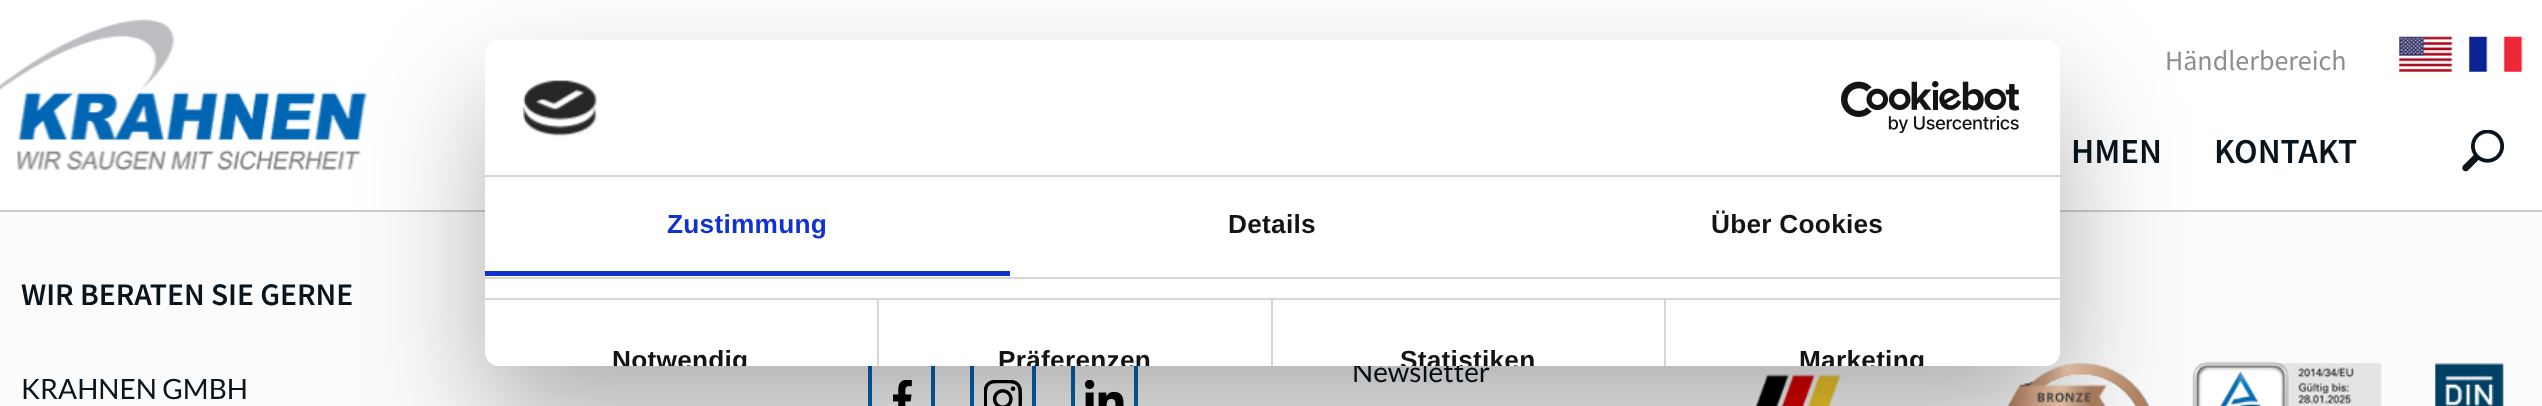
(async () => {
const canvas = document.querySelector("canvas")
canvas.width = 2542
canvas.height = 406
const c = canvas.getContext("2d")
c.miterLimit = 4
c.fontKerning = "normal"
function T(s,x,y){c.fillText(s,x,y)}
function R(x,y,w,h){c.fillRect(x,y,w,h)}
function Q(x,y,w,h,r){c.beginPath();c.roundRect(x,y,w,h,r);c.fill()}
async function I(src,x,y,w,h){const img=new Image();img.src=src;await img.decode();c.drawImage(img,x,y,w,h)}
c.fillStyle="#fbfbfb"
R(0,0,2542,406)
c.fillStyle="#fff"
R(0,0,2542,210)
c.fillStyle="#c9cecf"
R(0,210,2542,2)
await I("1.png",0,19,368,152)
c.font="28px Source Sans Pro"
c.fillStyle="#8e8e8e"
T("Händlerbereich",2165,70)
await I("2.png",2399,36,54,36)
await I("3.png",2469,36,54,36)
c.font="600 35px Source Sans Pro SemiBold"
c.fillStyle="#09141d"
T("HMEN",2071,163)
T("KONTAKT",2214,163)
await I("4.png",2462,130,42,42)
c.font="600 31.5px Source Sans Pro SemiBold"
T("WIR BERATEN SIE GERNE",21,305)
c.font="28px Lato"
T("KRAHNEN GMBH",21,399)
c.strokeStyle="#0066b2"
c.lineWidth=4
c.strokeRect(870,364,63,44)
await I("5.png",893,380,19,26)
c.strokeRect(972,364,62,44)
await I("6.png",984,380,38,26)
c.strokeRect(1073,364,63,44)
await I("7.png",1085,380,39,26)
T("Newsletter",1352,382)
await I("8.png",1755,374,86,32)
await I("9.png",2007,363,143,43)
await I("10.png",2192,361,190,45)
await I("11.png",2435,363,69,43)
c.fillStyle="#0000004d"
c.filter="blur(59.5px)"
c.beginPath()
c.roundRect(485,96,1575,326,14)
c.fill()
c.filter="none"
c.fillStyle="#fff"
Q(485,40,1575,326,14)
c.fillStyle="#d6d6d6"
R(485,175,1575,2)
await I("12.png",523,80,74,57)
await I("13.png",1841,81,179,52)
R(485,277,1575,2)
c.fillStyle="#1032cf"
R(485,271,525,5)
c.letterSpacing="0.25px"
c.font="bold 26.25px Liberation Sans"
T("Zustimmung",667,233)
c.fillStyle="#141414"
T("Details",1228,233)
T("Über Cookies",1711,233)
c.fillStyle="#d6d6d6"
R(877,299,2,67)
R(1271,299,2,67)
R(1664,299,2,67)
R(485,298,1575,2)
c.save()
c.beginPath()
c.roundRect(485,40,1575,326,14)
c.clip()
c.fillStyle="#141414"
T("Notwendig",612,369)
T("Präferenzen",998,369)
T("Statistiken",1400,369)
T("Marketing",1799,369)
c.restore()
})()
